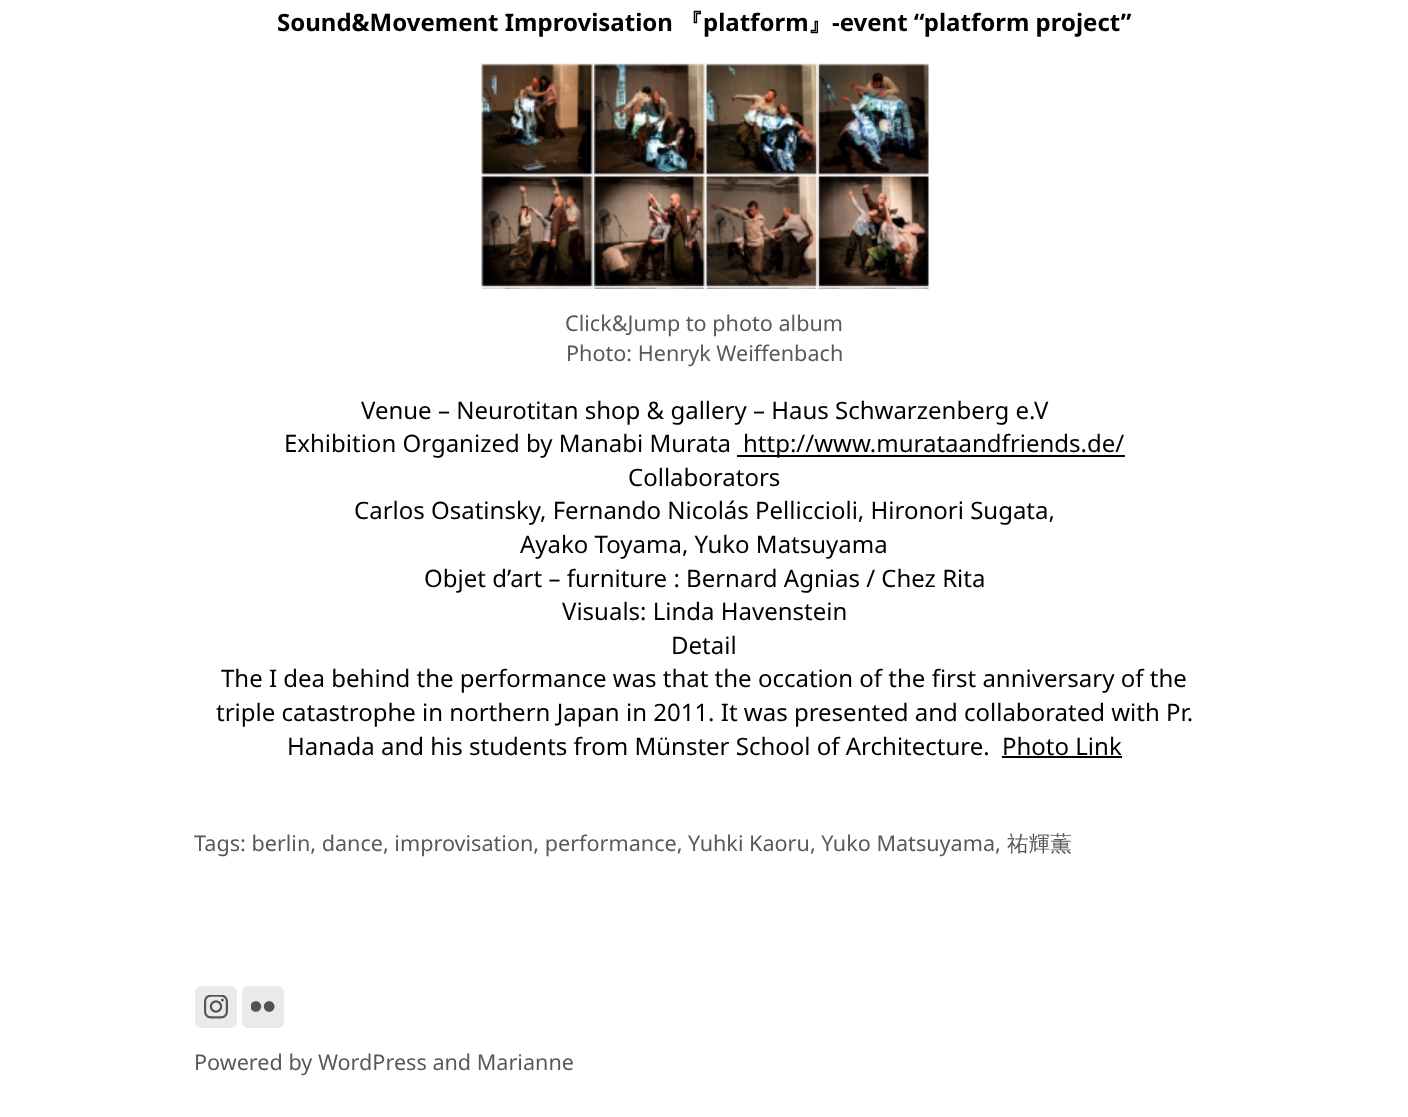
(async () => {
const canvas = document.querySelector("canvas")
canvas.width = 1408
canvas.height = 1117
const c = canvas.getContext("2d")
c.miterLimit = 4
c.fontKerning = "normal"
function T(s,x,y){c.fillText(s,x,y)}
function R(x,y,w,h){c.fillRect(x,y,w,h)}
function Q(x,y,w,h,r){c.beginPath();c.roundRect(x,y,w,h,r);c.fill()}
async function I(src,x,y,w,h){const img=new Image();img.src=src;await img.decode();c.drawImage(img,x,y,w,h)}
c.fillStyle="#fff"
R(0,0,1408,1117)
c.font="bold 24px Noto Sans"
c.fillStyle="#000"
T("Sound&Movement Improvisation",277,31)
c.font="bold 24px WenQuanYi Zen Hei"
T("『",679,31)
c.font="bold 24px Noto Sans"
T("platform",703,31)
c.font="bold 24px WenQuanYi Zen Hei"
T("』",808,31)
c.font="bold 24px Noto Sans"
T("-event “platform project”",832,31)
await I("1.png",481,63,448,226)
c.font="21.6px Noto Sans"
c.fillStyle="#595959"
T("Click&Jump to photo album",565,331)
T("Photo: Henryk Weiffenbach",566,361)
c.font="24px Noto Sans"
c.fillStyle="#000"
T("Venue – Neurotitan shop & gallery – Haus Schwarzenberg e.V",361,419)
T("Exhibition Organized by Manabi Murata",284,452)
R(737,455,388,2)
T("http://www.murataandfriends.de/",743,452)
T("Collaborators",628,486)
T("Carlos Osatinsky, Fernando Nicolás Pelliccioli, Hironori Sugata,",354,519)
T("Ayako Toyama, Yuko Matsuyama",520,553)
T("Objet d’art – furniture : Bernard Agnias / Chez Rita",424,587)
T("Visuals: Linda Havenstein",562,620)
T("Detail",671,654)
T("The I dea behind the performance was that the occation of the first anniversary of the",221,687)
T("triple catastrophe in northern Japan in 2011. It was presented and collaborated with Pr.",216,721)
T("Hanada and his students from Münster School of Architecture.",287,755)
T("Photo Link",1002,755)
R(1002,756,120,2)
c.font="21.6px Noto Sans"
c.fillStyle="#595959"
T("Tags: berlin, dance, improvisation, performance, Yuhki Kaoru, Yuko Matsuyama,",194,851)
c.font="500 21.6px WenQuanYi Zen Hei"
T("祐輝薫",1007,851)
c.fillStyle="#eaeaea"
Q(195,986,42,42,6)
await I("2.png",204,995,24,24)
Q(242,986,42,42,6)
await I("3.png",251,1001,24,11)
c.font="21.6px Noto Sans"
c.fillStyle="#595959"
T("Powered by WordPress and Marianne",194,1070)
})()
